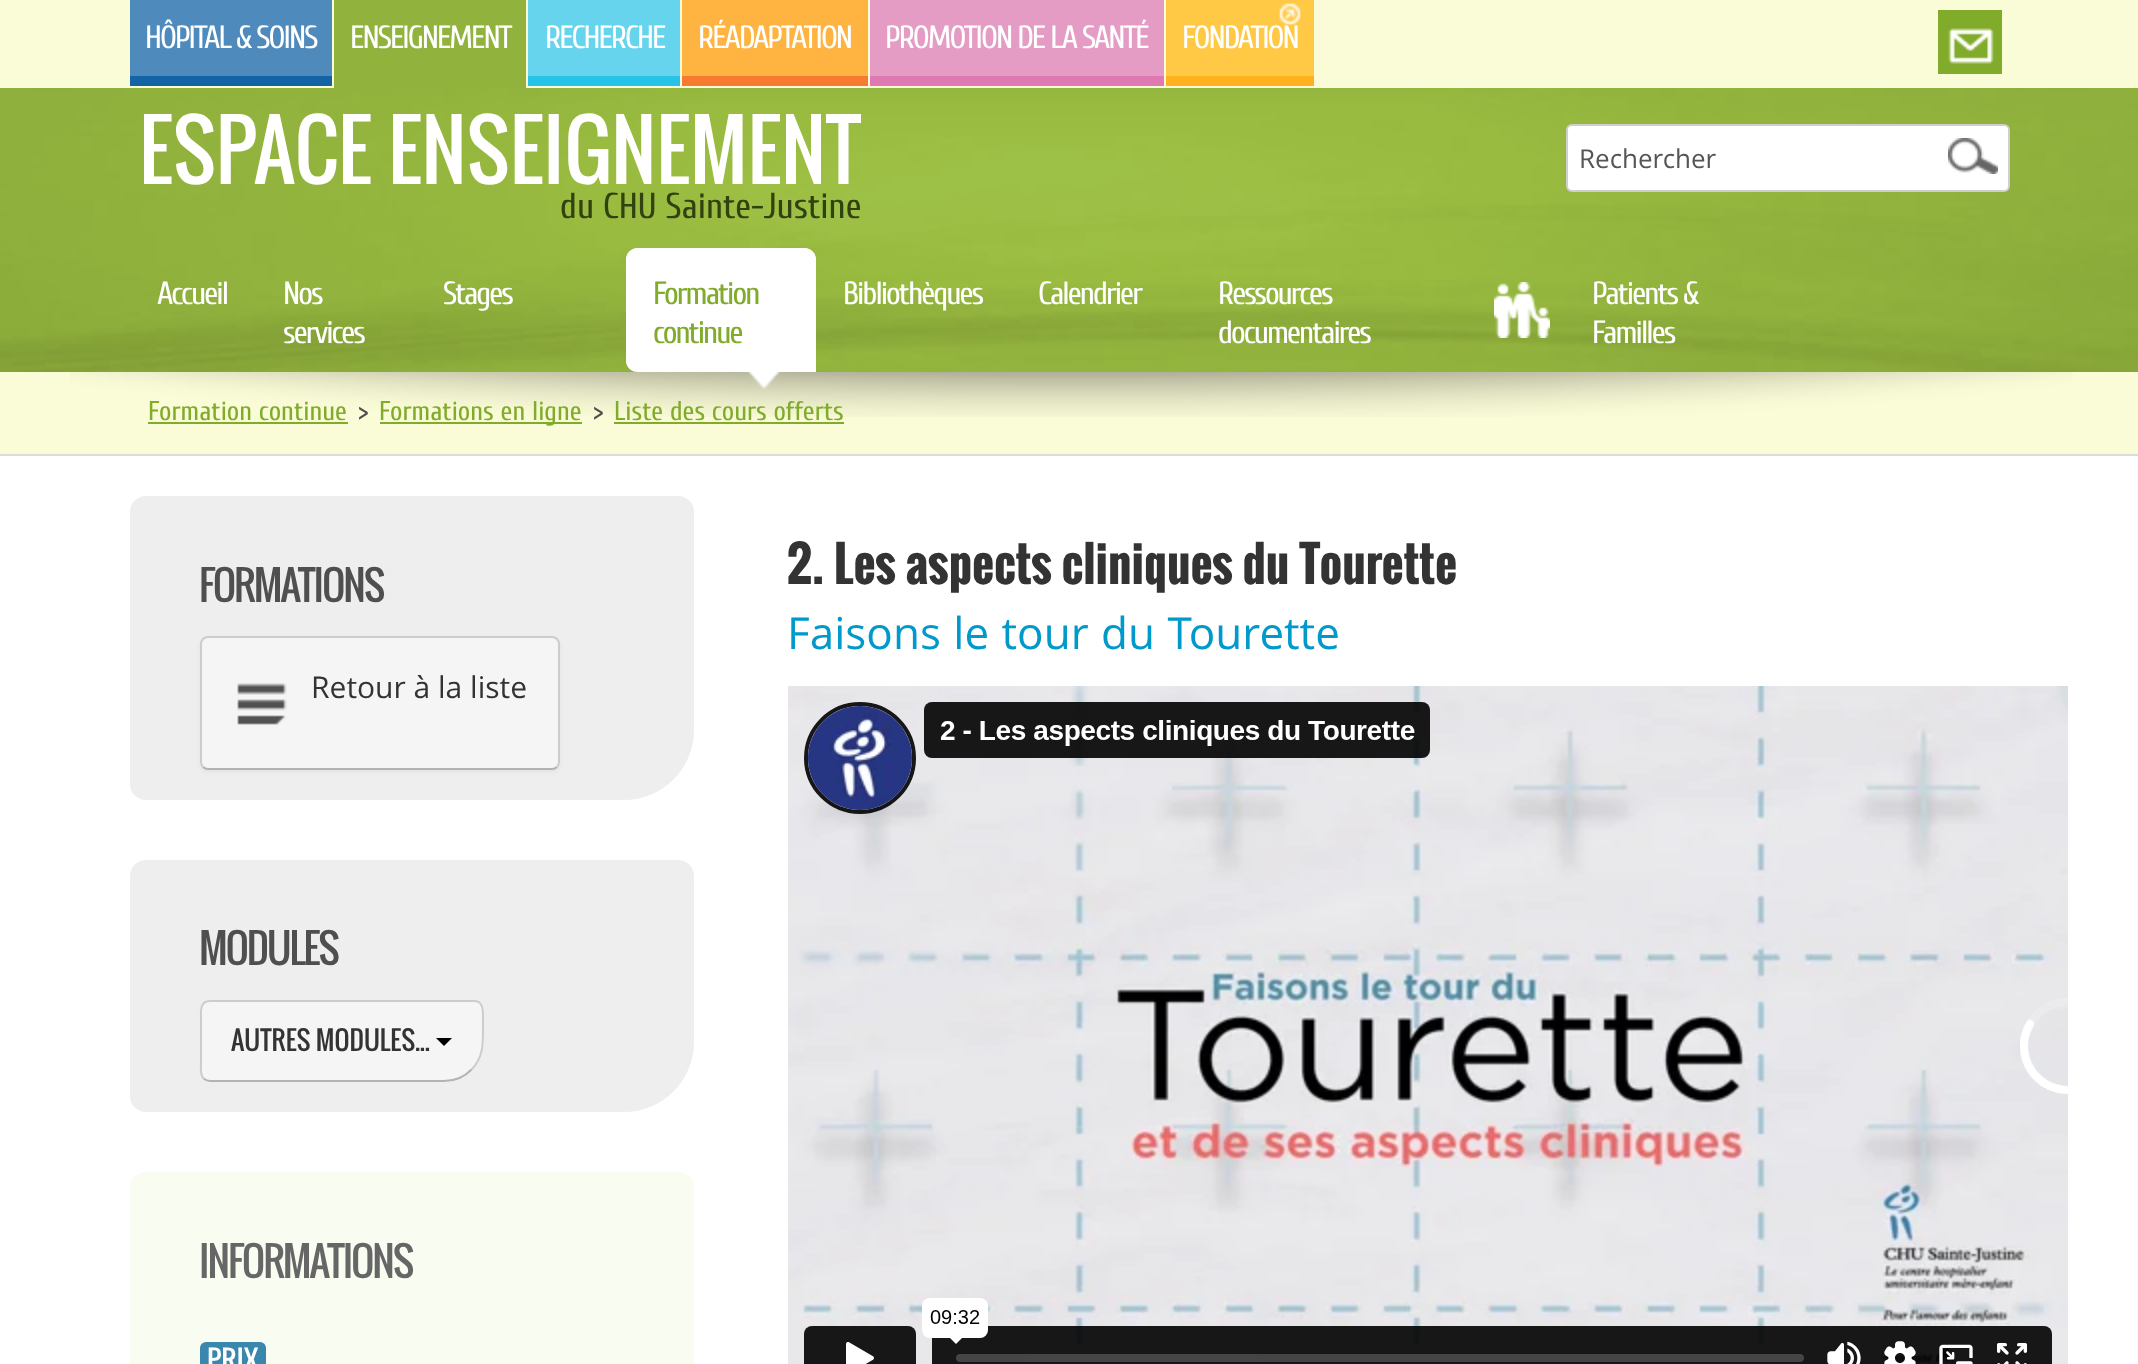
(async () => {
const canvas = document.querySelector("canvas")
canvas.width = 2138
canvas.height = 1364
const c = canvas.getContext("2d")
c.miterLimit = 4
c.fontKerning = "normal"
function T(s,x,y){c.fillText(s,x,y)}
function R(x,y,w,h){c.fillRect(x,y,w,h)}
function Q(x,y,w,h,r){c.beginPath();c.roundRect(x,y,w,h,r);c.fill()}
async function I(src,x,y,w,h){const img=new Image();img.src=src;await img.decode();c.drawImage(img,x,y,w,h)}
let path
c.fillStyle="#fff"
R(0,0,2138,1364)
await I("1.png",0,88,2138,284)
c.fillStyle="#fafbd7"
R(0,0,2138,88)
c.fillStyle="#4f8abc"
R(130,0,202,76)
c.fillStyle="#1363a5"
R(130,76,202,10)
c.letterSpacing="-2px"
c.font="32px Cuprum"
c.fillStyle="#fff"
T("HÔPITAL & SOINS",145,48)
c.fillStyle="#91b23d"
R(334,0,192,88)
c.fillStyle="#fff"
T("ENSEIGNEMENT",350,48)
c.fillStyle="#67d4ee"
R(528,0,152,76)
c.fillStyle="#26c2e7"
R(528,76,152,10)
c.fillStyle="#fff"
T("RECHERCHE",545,48)
c.fillStyle="#ffb340"
R(682,0,186,76)
c.fillStyle="#f67a30"
R(682,76,186,10)
c.fillStyle="#fff"
T("RÉADAPTATION",698,48)
c.fillStyle="#e49cc5"
R(870,0,294,76)
c.fillStyle="#e078b2"
R(870,76,294,10)
c.fillStyle="#fff"
T("PROMOTION DE LA SANTÉ",885,48)
c.fillStyle="#ffc946"
R(1166,0,148,76)
await I("2.png",1279,3,22,22)
c.fillStyle="#ffb11e"
R(1166,76,148,10)
c.fillStyle="#fff"
T("FONDATION",1182,48)
c.fillStyle="#80ab2b"
R(1938,10,64,64)
await I("3.png",1948,28,46,36)
c.letterSpacing="0px"
c.font="80px Oswald"
c.fillStyle="#fff"
T("ESPACE ENSEIGNEMENT",139,184)
c.font="36px Cuprum"
c.fillStyle="#314110"
T("du CHU Sainte-Justine",560,218)
c.fillStyle="#fff"
c.beginPath()
c.roundRect(1567,125,442,66,5)
c.fill()
c.strokeStyle="#cfcfcf"
c.lineWidth=2
c.stroke()
c.font="26px Open Sans"
c.fillStyle="#555"
T("Rechercher",1579,168)
await I("4.png",1948,138,50,36)
c.letterSpacing="-2px"
c.font="32px Cuprum"
c.fillStyle="#fff"
T("Accueil",157,304)
T("Nos",283,304)
T("services",283,343)
T("Stages",443,304)
c.beginPath()
c.roundRect(626,248,190,124,[12,12,0,12])
c.fill()
path = new Path2D("M638 248h166c7 0 12 5 12 12v112h-178c-7 0-12-5-12-12v-100c0-7 5-12 12-12zm0 2h166c6 0 10 4 10 10v112h-176c-6 0-10-5-10-12v-100c0-6 4-10 10-10z")
c.fill(path,"evenodd")
c.fillStyle="#80ab2b"
T("Formation",653,304)
T("continue",653,343)
c.fillStyle="#fafbd7"
R(0,372,2138,82)
await I("7.png",70,372,2002,45)
await I("5.png",747,372,34,17)
c.fillStyle="#fff"
T("Bibliothèques",843,304)
T("Calendrier",1038,304)
T("Ressources",1218,304)
T("documentaires",1218,343)
await I("6.png",1494,282,56,56)
T("Patients &",1592,304)
T("Familles",1592,343)
c.fillStyle="#dcdcdc"
R(0,454,2138,2)
c.letterSpacing="0px"
c.font="27px Cuprum"
c.fillStyle="#80ab2b"
T("Formation continue",148,420)
R(148,422,200,2)
c.fillStyle="#4f4f4f"
T(">",358,420)
c.fillStyle="#80ab2b"
R(380,422,202,2)
T("Formations en ligne",379,420)
c.fillStyle="#4f4f4f"
T(">",593,420)
c.fillStyle="#80ab2b"
T("Liste des cours offerts",614,420)
R(614,422,230,2)
c.fillStyle="#eee"
c.beginPath()
c.roundRect(130,496,564,304,[16,16,70,16])
c.fill()
c.letterSpacing="-2px"
c.font="40px Oswald"
c.fillStyle="#4f4f4f"
T("FORMATIONS",199,602)
c.fillStyle="#0000000d"
c.filter="blur(2px)"
c.beginPath()
c.roundRect(200,638,360,134,8)
c.fill()
c.filter="none"
c.fillStyle="#f5f5f5"
Q(200,636,360,134,8)
await I("8.png",237,683,50,42)
path = new Path2D("M557 767c-1.5 1.5-3 2-5 2h-344c-2 0-3.5-.5-5-2")
c.strokeStyle="#b3b3b3"
c.stroke(path)
path = new Path2D("M203 767c-1.5-1.5-2-3-2-5v-118c0-2 .5-3.5 2-5c1.5-1.5 3-2 5-2h344c2 0 3.5 .5 5 2c1.5 1.5 2 3 2 5v118c0 2-.5 3.5-2 5")
c.strokeStyle="#ccc"
c.stroke(path)
c.letterSpacing="0px"
c.font="30px Open Sans"
c.fillStyle="#333"
T("Retour à la liste",311,698)
c.fillStyle="#eee"
c.beginPath()
c.roundRect(130,860,564,252,[16,16,70,16])
c.fill()
c.letterSpacing="-2px"
c.font="40px Oswald"
c.fillStyle="#4f4f4f"
T("MODULES",199,965)
c.fillStyle="#f5f5f5"
c.beginPath()
c.roundRect(200,1000,284,82,[10,10,40,10])
c.fill()
path = new Path2D("M471.5 1069.5c-7 7.5-17 11.5-27.5 11.5h-234c-2.5 0-4.5-1-6.5-2.5")
c.strokeStyle="#b3b3b3"
c.stroke(path)
path = new Path2D("M203.5 1078.5c-4-4.5-2.5-12-2.5-17v-41c0-7-2-19.5 9-19.5h264c8.5 0 9 8 9 14.5v10.5c0 16.5 1 31-11.5 43.5")
c.strokeStyle="#ccc"
c.stroke(path)
c.letterSpacing="0px"
c.font="26px Oswald"
c.fillStyle="#333"
T("AUTRES MODULES...",231,1051)
c.fillStyle="#000"
path = new Path2D("M436 1038h16l-8 8z")
c.fill(path)
c.fillStyle="#f8fcf1"
path = new Path2D("M146 1172h532c9 0 16 7 16 16v176c0 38.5-31.5 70-70 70h-478c-9 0-16-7-16-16v-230c0-9 7-16 16-16z")
c.fill(path)
c.letterSpacing="-2px"
c.font="40px Oswald"
c.fillStyle="#666"
T("INFORMATIONS",199,1278)
c.fillStyle="#3a87ad"
Q(200,1342,66,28,6)
c.letterSpacing="0px"
c.font="28px Oswald"
c.fillStyle="#fff"
T("PRIX",207,1372)
c.font="bold 48px Oswald"
c.fillStyle="#333"
T("2. Les aspects cliniques du Tourette",787,584)
c.wordSpacing="1px"
c.font="44px Open Sans"
c.fillStyle="#09c"
T("Faisons le tour du Tourette",787,649)
await I("9.png",788,686,1280,678)
})()
